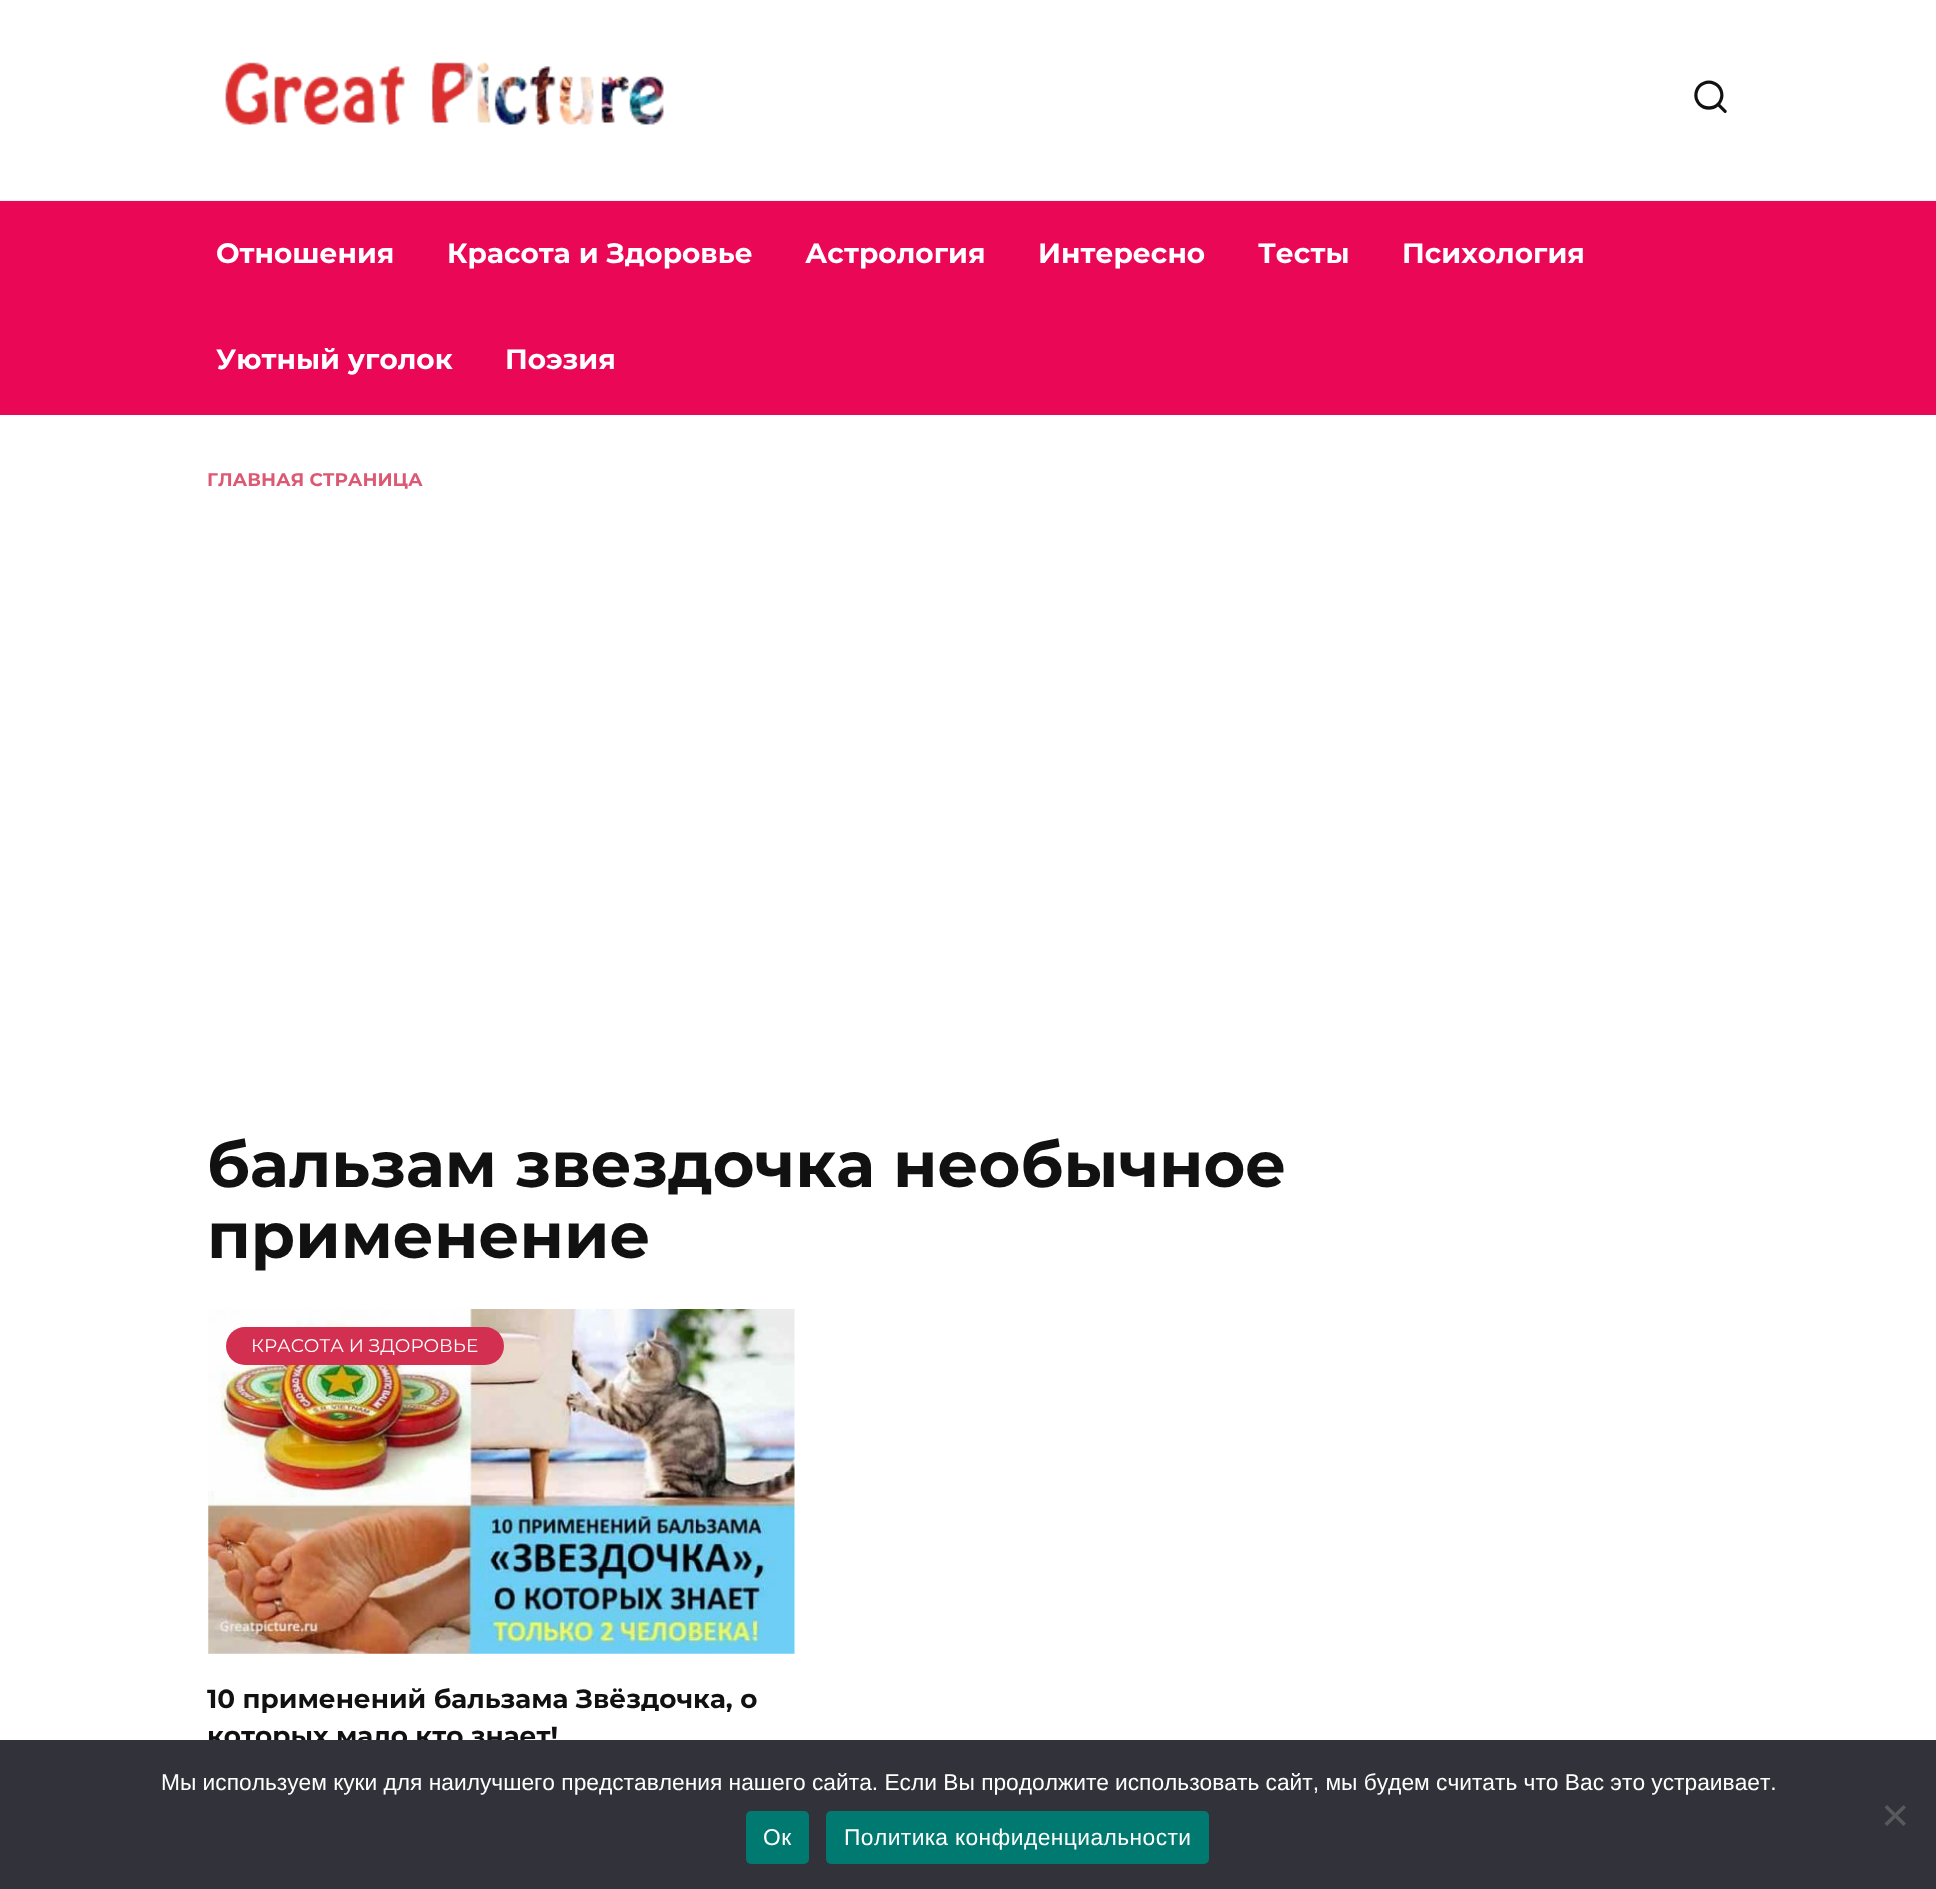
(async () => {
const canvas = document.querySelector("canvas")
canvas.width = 1936
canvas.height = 1889
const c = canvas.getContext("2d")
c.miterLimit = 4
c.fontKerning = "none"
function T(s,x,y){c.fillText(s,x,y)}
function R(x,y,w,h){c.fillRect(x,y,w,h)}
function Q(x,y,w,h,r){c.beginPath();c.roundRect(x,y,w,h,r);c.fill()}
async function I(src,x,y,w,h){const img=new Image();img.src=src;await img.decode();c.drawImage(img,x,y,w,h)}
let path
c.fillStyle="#fff"
R(0,0,1936,1889)
c.fillStyle="#f2f5f9"
R(0,200,1936,1)
await I("1.png",225,62,439,63)
c.font="39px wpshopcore"
c.fillStyle="#111"
T("🔍",1691,113)
c.fillStyle="#ea0756"
R(0,201,1936,214)
c.font="bold 28px Montserrat"
c.fillStyle="#fff"
T("Отношения",216,263)
T("Красота и Здоровье",447,263)
T("Астрология",805,263)
T("Интересно",1038,263)
T("Тесты",1258,263)
T("Психология",1402,263)
T("Уютный уголок",216,369)
T("Поэзия",505,369)
c.font="bold 18.4px Montserrat"
c.fillStyle="#dc5974"
T("ГЛАВНАЯ СТРАНИЦА",207,486)
c.font="bold 64px Montserrat"
c.fillStyle="#111"
T("бальзам звездочка необычное",207,1187)
T("применение",207,1258)
await I("2.png",208,1309,587,345)
c.fillStyle="#d33051"
Q(226,1327,278,38,19)
c.font="18.4px Montserrat"
c.fillStyle="#fff"
T("КРАСОТА И ЗДОРОВЬЕ",251,1352)
c.font="bold 26.25px Montserrat"
c.fillStyle="#111"
T("10 применений бальзама Звёздочка, о",207,1708)
T("которых мало кто знает!",207,1745)
c.fillStyle="#32323a"
R(0,1740,1936,149)
c.font="22.75px Liberation Sans"
c.fillStyle="#fff"
T("Мы используем куки для наилучшего представления нашего сайта. Если Вы продолжите",161,1790)
T("использовать сайт, мы будем",1115,1790)
T("считать что Вас это устраивает.",1436,1790)
c.fillStyle="#59595d"
path = new Path2D("M1903.5 1805l2.5 2.5l-19 18.5l-2.5-2.5z")
c.fill(path)
path = new Path2D("M1884.5 1807.5l2.5-2.5l19 18.5l-2.5 2.5z")
c.fill(path)
c.fillStyle="#007a70"
Q(746,1811,63,53,5)
c.letterSpacing="0.45px"
c.fillStyle="#fff"
T("Ок",763,1845)
c.fillStyle="#007a70"
Q(826,1811,383,53,5)
c.fillStyle="#fff"
T("Политика конфиденциальности",844,1845)
})()
